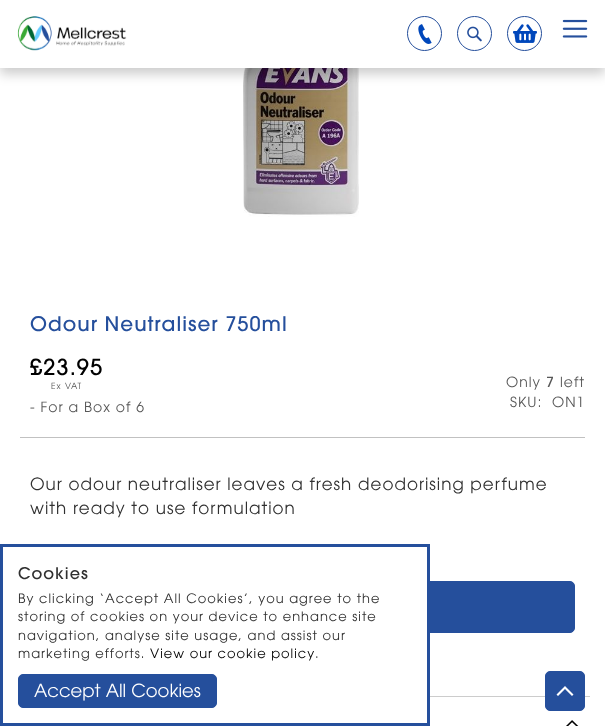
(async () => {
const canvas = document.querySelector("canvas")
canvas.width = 605
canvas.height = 726
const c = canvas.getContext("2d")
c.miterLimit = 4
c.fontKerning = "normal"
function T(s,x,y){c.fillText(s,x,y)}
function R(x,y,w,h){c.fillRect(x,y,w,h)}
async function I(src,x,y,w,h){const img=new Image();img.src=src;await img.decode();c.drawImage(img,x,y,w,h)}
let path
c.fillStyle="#fff"
R(0,0,605,726)
await I("6.png",243,68,116,149)
c.fillStyle="#00000033"
c.filter="blur(6px)"
c.beginPath()
c.rect(0,6,605,68)
c.fill()
c.filter="none"
c.fillStyle="#fff"
R(0,0,605,68)
await I("1.png",17,16,110,35)
await I("2.png",562,19,26,19)
c.beginPath()
c.arc(424.5,33.5,17,0,7)
c.strokeStyle="#254f9c"
c.stroke()
await I("3.png",418,24,14,20)
c.beginPath()
c.arc(474.5,33.5,17,0,7)
c.stroke()
await I("4.png",467,26,15,16)
c.beginPath()
c.arc(524.5,33.5,17,0,7)
c.stroke()
await I("5.png",513,24,24,19)
c.letterSpacing="1px"
c.font="500 20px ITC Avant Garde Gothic"
c.fillStyle="#254f9c"
T("Odour Neutraliser 750ml",30,331)
c.fillStyle="#c1c1c1"
R(20,437,565,1)
c.font="500 22px ITC Avant Garde Gothic"
c.fillStyle="#000"
T("£23.95",30,375)
c.font="8.5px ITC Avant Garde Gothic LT"
c.fillStyle="#575757"
T("Ex VAT",51,389)
c.font="14px ITC Avant Garde Gothic LT"
T("Only",506,387)
c.font="500 14px ITC Avant Garde Gothic"
T("7",546,387)
c.font="14px ITC Avant Garde Gothic LT"
T("left",560,387)
T("SKU:",510,407)
T("ON1",552,407)
T("- For a Box of 6",30,412)
c.font="16.8px ITC Avant Garde Gothic LT"
c.fillStyle="#303030"
T("Our odour neutraliser leaves a fresh deodorising perfume",30,490)
T("with ready to use formulation",30,514)
c.fillStyle="#254f9c"
c.beginPath()
c.roundRect(152.5,581.5,422,51,4.5)
c.fill()
c.stroke()
c.fillStyle="#ccc"
R(430,696,160,1)
await I("7.png",566,720,13,6)
c.fillStyle="#254f9c"
c.beginPath()
c.roundRect(545.5,671.5,39,39,4.5)
c.fill()
c.stroke()
c.fillStyle="#fff"
path = new Path2D("M565 689l7 7l1.5-1.5l-8.5-8.5l-8.5 8.5l1.5 1.5z")
c.fill(path)
R(152,581,275,52)
c.lineWidth=3
c.strokeRect(1.5,545.5,427,179)
c.font="500 16px ITC Avant Garde Gothic"
c.fillStyle="#303030"
T("Cookies",18,579)
c.font="13px ITC Avant Garde Gothic LT"
T("By clicking ‘Accept All Cookies’, you agree to the",18,603)
T("storing of cookies on your device to enhance site",18,621)
T("navigation, analyse site usage, and assist our",18,640)
T("marketing efforts.",18,658)
c.fillStyle="#000"
T("View our cookie policy",150,658)
c.fillStyle="#303030"
T(".",315,658)
c.fillStyle="#254f9c"
c.beginPath()
c.roundRect(18.5,674.5,198,33,4.5)
c.fill()
c.lineWidth=1
c.stroke()
c.letterSpacing="0px"
c.font="18px ITC Avant Garde Gothic LT"
c.fillStyle="#fff"
T("Accept All Cookies",34,697)
})()
